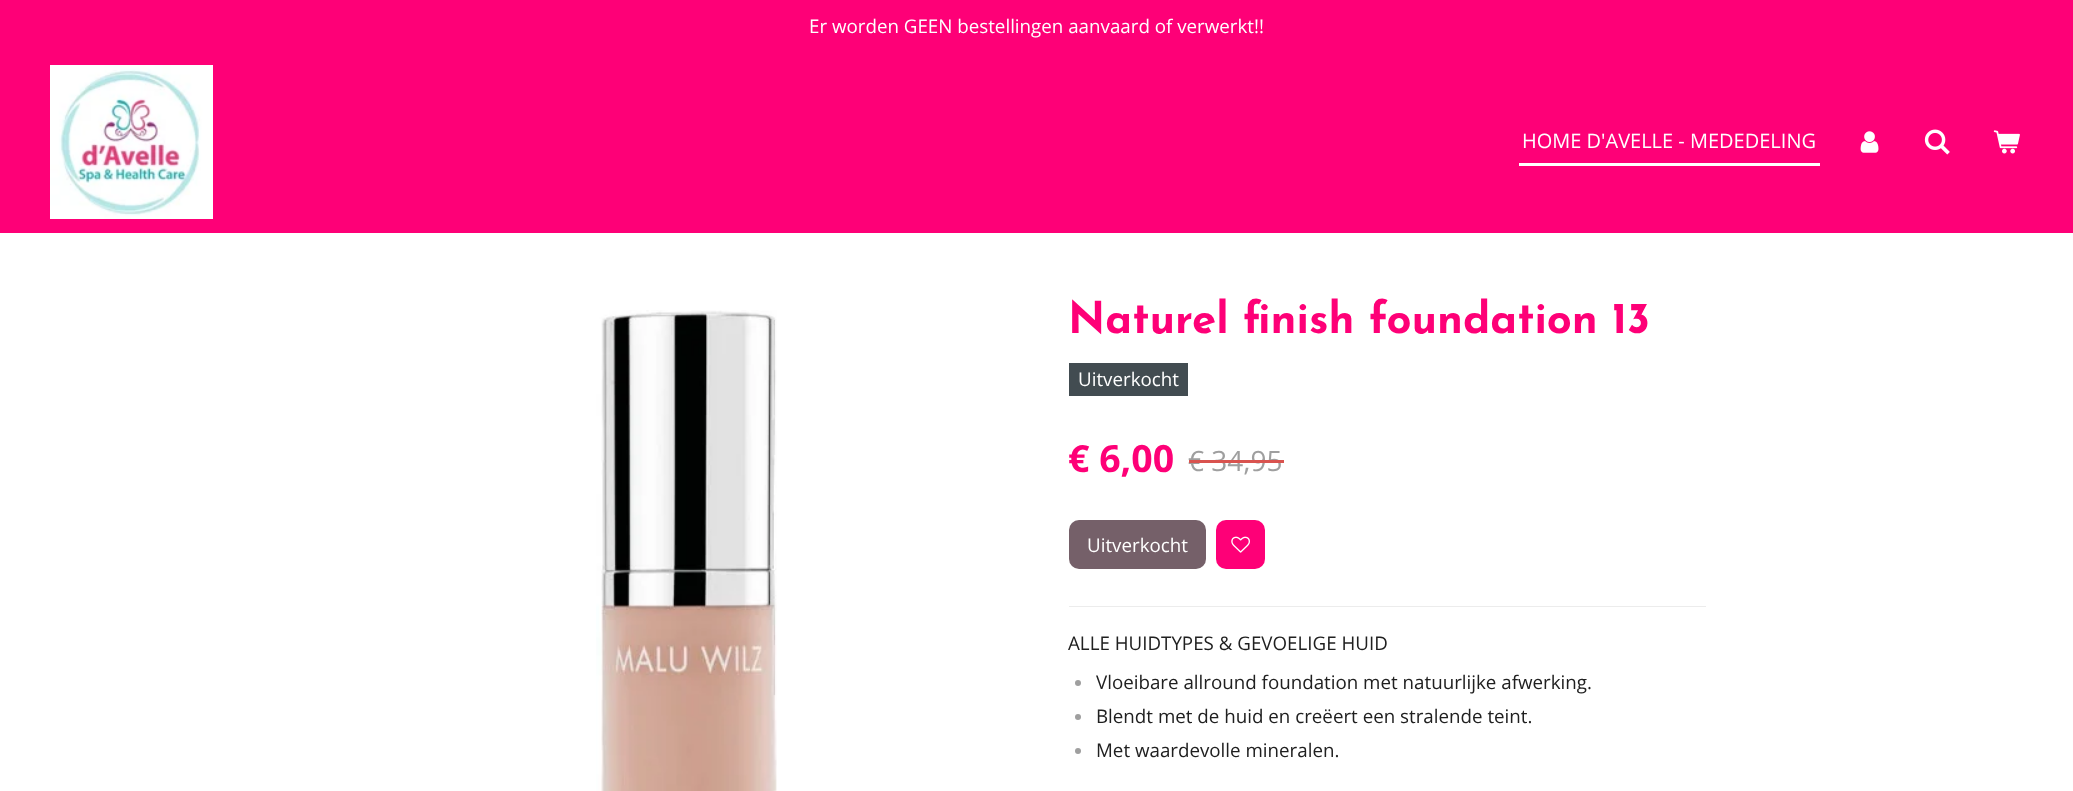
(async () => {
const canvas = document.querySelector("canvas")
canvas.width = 2073
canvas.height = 791
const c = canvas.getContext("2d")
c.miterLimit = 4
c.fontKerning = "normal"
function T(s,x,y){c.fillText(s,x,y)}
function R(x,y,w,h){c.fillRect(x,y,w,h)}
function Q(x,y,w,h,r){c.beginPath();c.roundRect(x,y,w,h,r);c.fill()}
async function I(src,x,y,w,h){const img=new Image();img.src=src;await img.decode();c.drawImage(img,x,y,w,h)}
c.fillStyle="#fff"
R(0,0,2073,791)
c.fillStyle="#fe0077"
R(0,0,2073,233)
c.font="18.75px Open Sans"
c.fillStyle="#fff"
T("Er worden GEEN bestellingen aanvaard of verwerkt!!",809,33)
await I("1.png",50,65,163,154)
R(1519,163,301,3)
c.font="20px Open Sans"
T("HOME D'AVELLE - MEDEDELING",1522,148)
await I("2.png",1860,131,19,22)
await I("3.png",1924,129,26,26)
await I("4.png",1993,130,27,24)
await I("5.png",596,310,181,481)
c.font="bold 43.75px Josefin Sans"
c.fillStyle="#fe0077"
T("Naturel finish foundation 13",1068,333)
c.fillStyle="#424c51"
R(1069,363,119,33)
c.font="18.75px Open Sans"
c.fillStyle="#fff"
T("Uitverkocht",1078,386)
c.font="bold 37.5px Open Sans"
c.fillStyle="#fe0077"
T("€ 6,00",1068,472)
c.font="28px Open Sans"
c.fillStyle="#9f9f9f"
T("€ 34,95",1188,471)
c.fillStyle="#d9534f"
R(1189,460,95,3)
c.fillStyle="#756069"
Q(1069,520,137,49,10)
c.font="18.75px Open Sans"
c.fillStyle="#fff"
T("Uitverkocht",1087,552)
c.fillStyle="#fe0077"
Q(1216,520,49,49,10)
await I("6.png",1231,536,19,17)
c.fillStyle="#ececec"
R(1069,606,637,1)
c.fillStyle="#202020"
T("ALLE HUIDTYPES & GEVOELIGE HUID",1068,650)
c.fillStyle="#9f9f9f"
c.beginPath()
c.arc(1078,683,3,0,7)
c.fill()
c.fillStyle="#202020"
T("Vloeibare allround foundation met natuurlijke afwerking.",1096,689)
c.fillStyle="#9f9f9f"
c.beginPath()
c.arc(1078,717,3,0,7)
c.fill()
c.fillStyle="#202020"
T("Blendt met de huid en creëert een stralende teint.",1096,723)
c.fillStyle="#9f9f9f"
c.beginPath()
c.arc(1078,751,3,0,7)
c.fill()
c.fillStyle="#202020"
T("Met waardevolle mineralen.",1096,757)
})()
